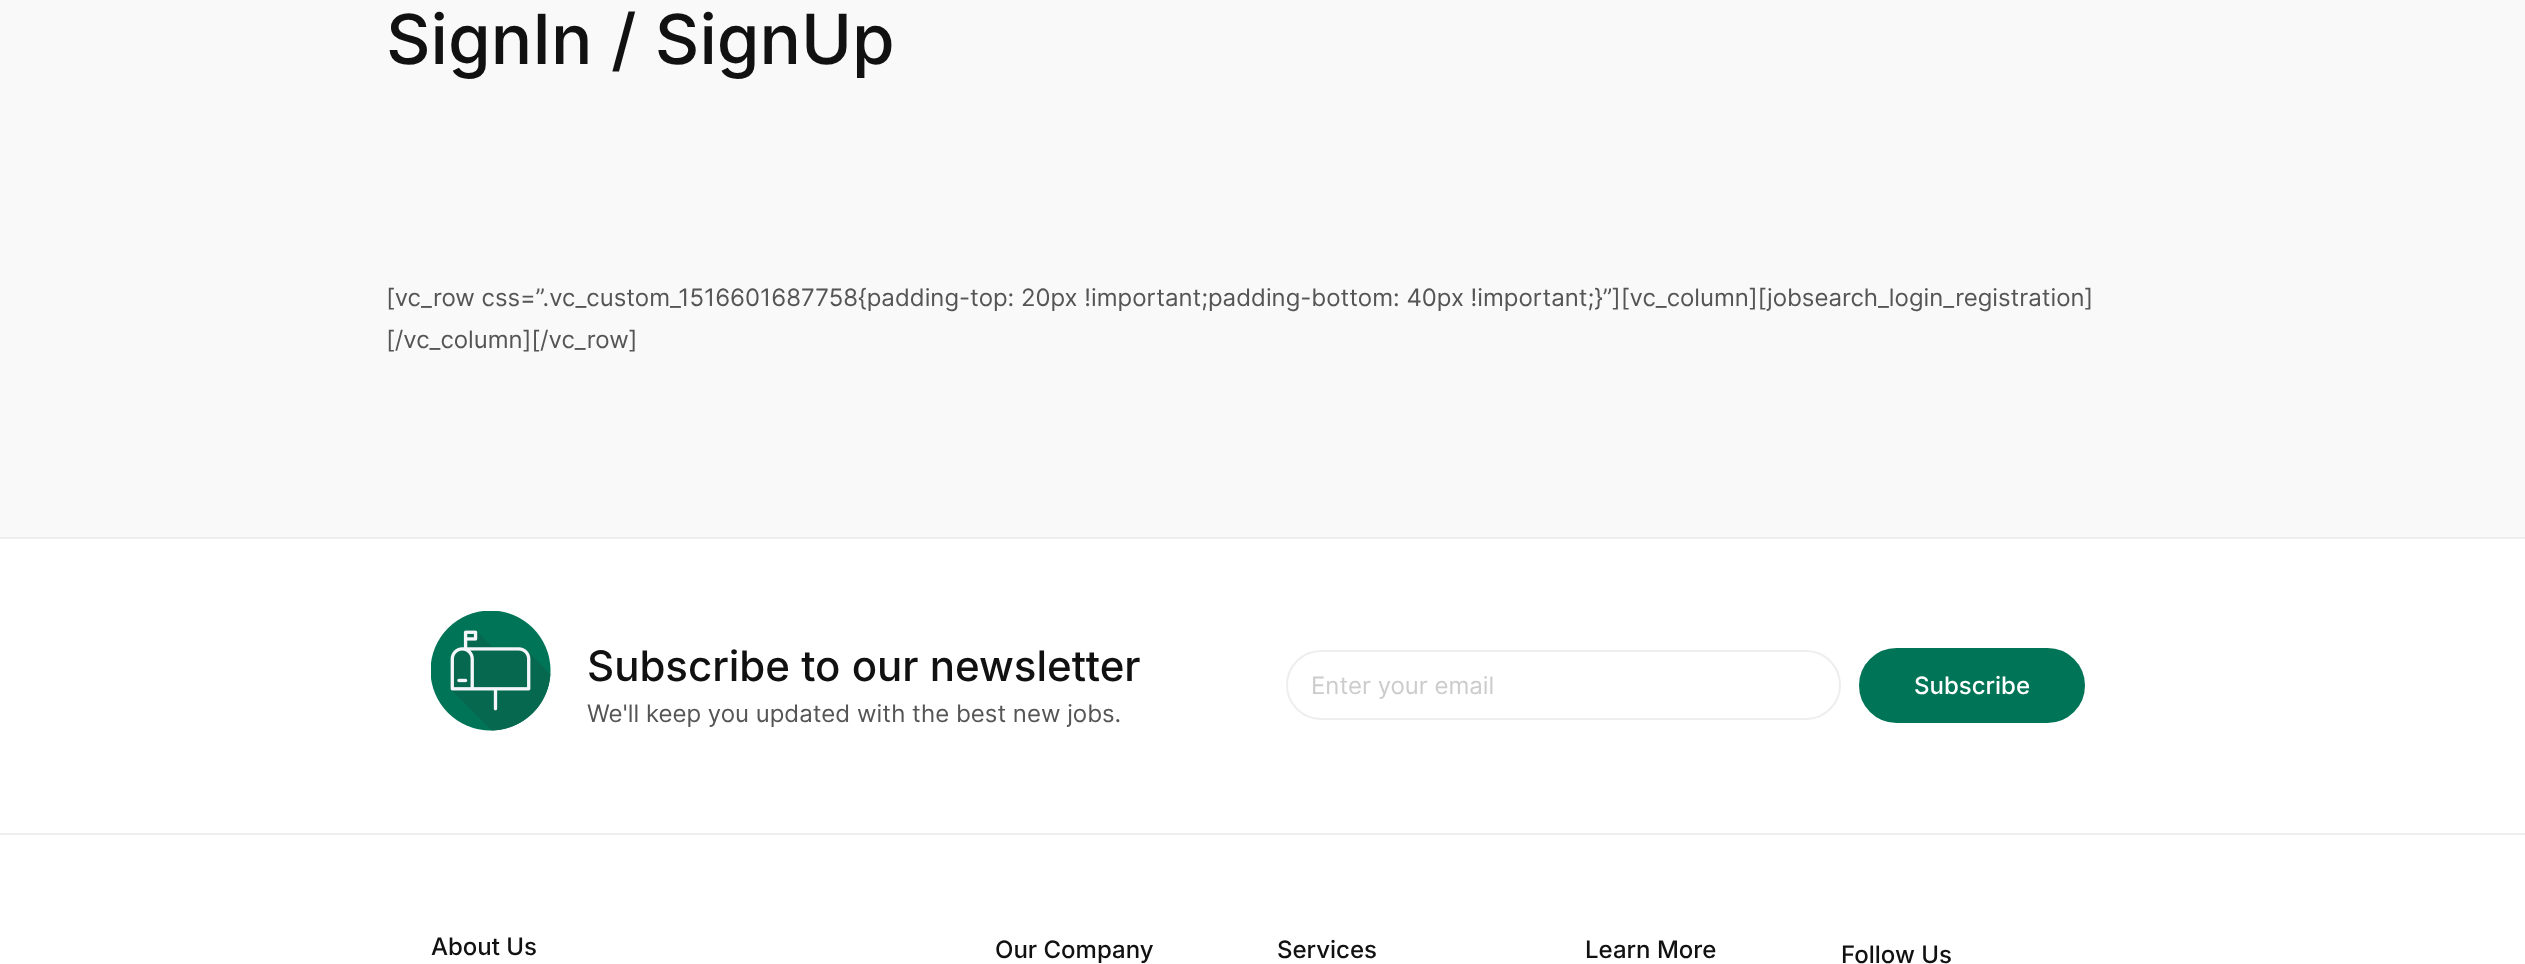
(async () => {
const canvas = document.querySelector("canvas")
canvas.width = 2525
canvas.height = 964
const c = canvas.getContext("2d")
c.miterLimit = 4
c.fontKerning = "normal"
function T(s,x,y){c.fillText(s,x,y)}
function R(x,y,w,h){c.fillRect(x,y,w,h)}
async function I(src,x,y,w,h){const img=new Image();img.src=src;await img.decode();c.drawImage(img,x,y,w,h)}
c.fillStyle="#f9f9f9"
R(0,0,2525,964)
c.font="500 69px Inter"
c.fillStyle="#111"
T("SignIn / SignUp",386,64)
c.font="24px Inter"
c.fillStyle="#555"
T("[vc_row css=”.vc_custom_1516601687758{padding-top: 20px !important;padding-bottom: 40px !important;}”][vc_column][jobsearch_login_registration]",386,306)
T("[/vc_column][/vc_row]",386,348)
c.fillStyle="#fff"
R(0,539,2525,294)
c.fillStyle="#eee"
R(0,537,2525,2)
await I("1.png",431,611,120,120)
c.font="500 42px Inter"
c.fillStyle="#111"
T("Subscribe to our newsletter",587,681)
c.font="24px Inter"
c.fillStyle="#555"
T("We'll keep you updated with the best new jobs.",587,722)
c.beginPath()
c.roundRect(1287,651,553,68,34)
c.strokeStyle="#eee"
c.lineWidth=2
c.stroke()
c.fillStyle="#ccc"
T("Enter your email",1311,694)
c.fillStyle="#007456"
c.beginPath()
c.roundRect(1860,649,224,73,36.5)
c.fill()
c.strokeStyle="#007456"
c.stroke()
c.font="500 24px Inter"
c.fillStyle="#fff"
T("Subscribe",1914,694)
R(0,835,2525,129)
c.fillStyle="#eee"
R(0,833,2525,2)
c.fillStyle="#111"
T("About Us",431,955)
T("Our Company",995,958)
T("Services",1277,958)
T("Learn More",1585,958)
T("Follow Us",1841,963)
})()
